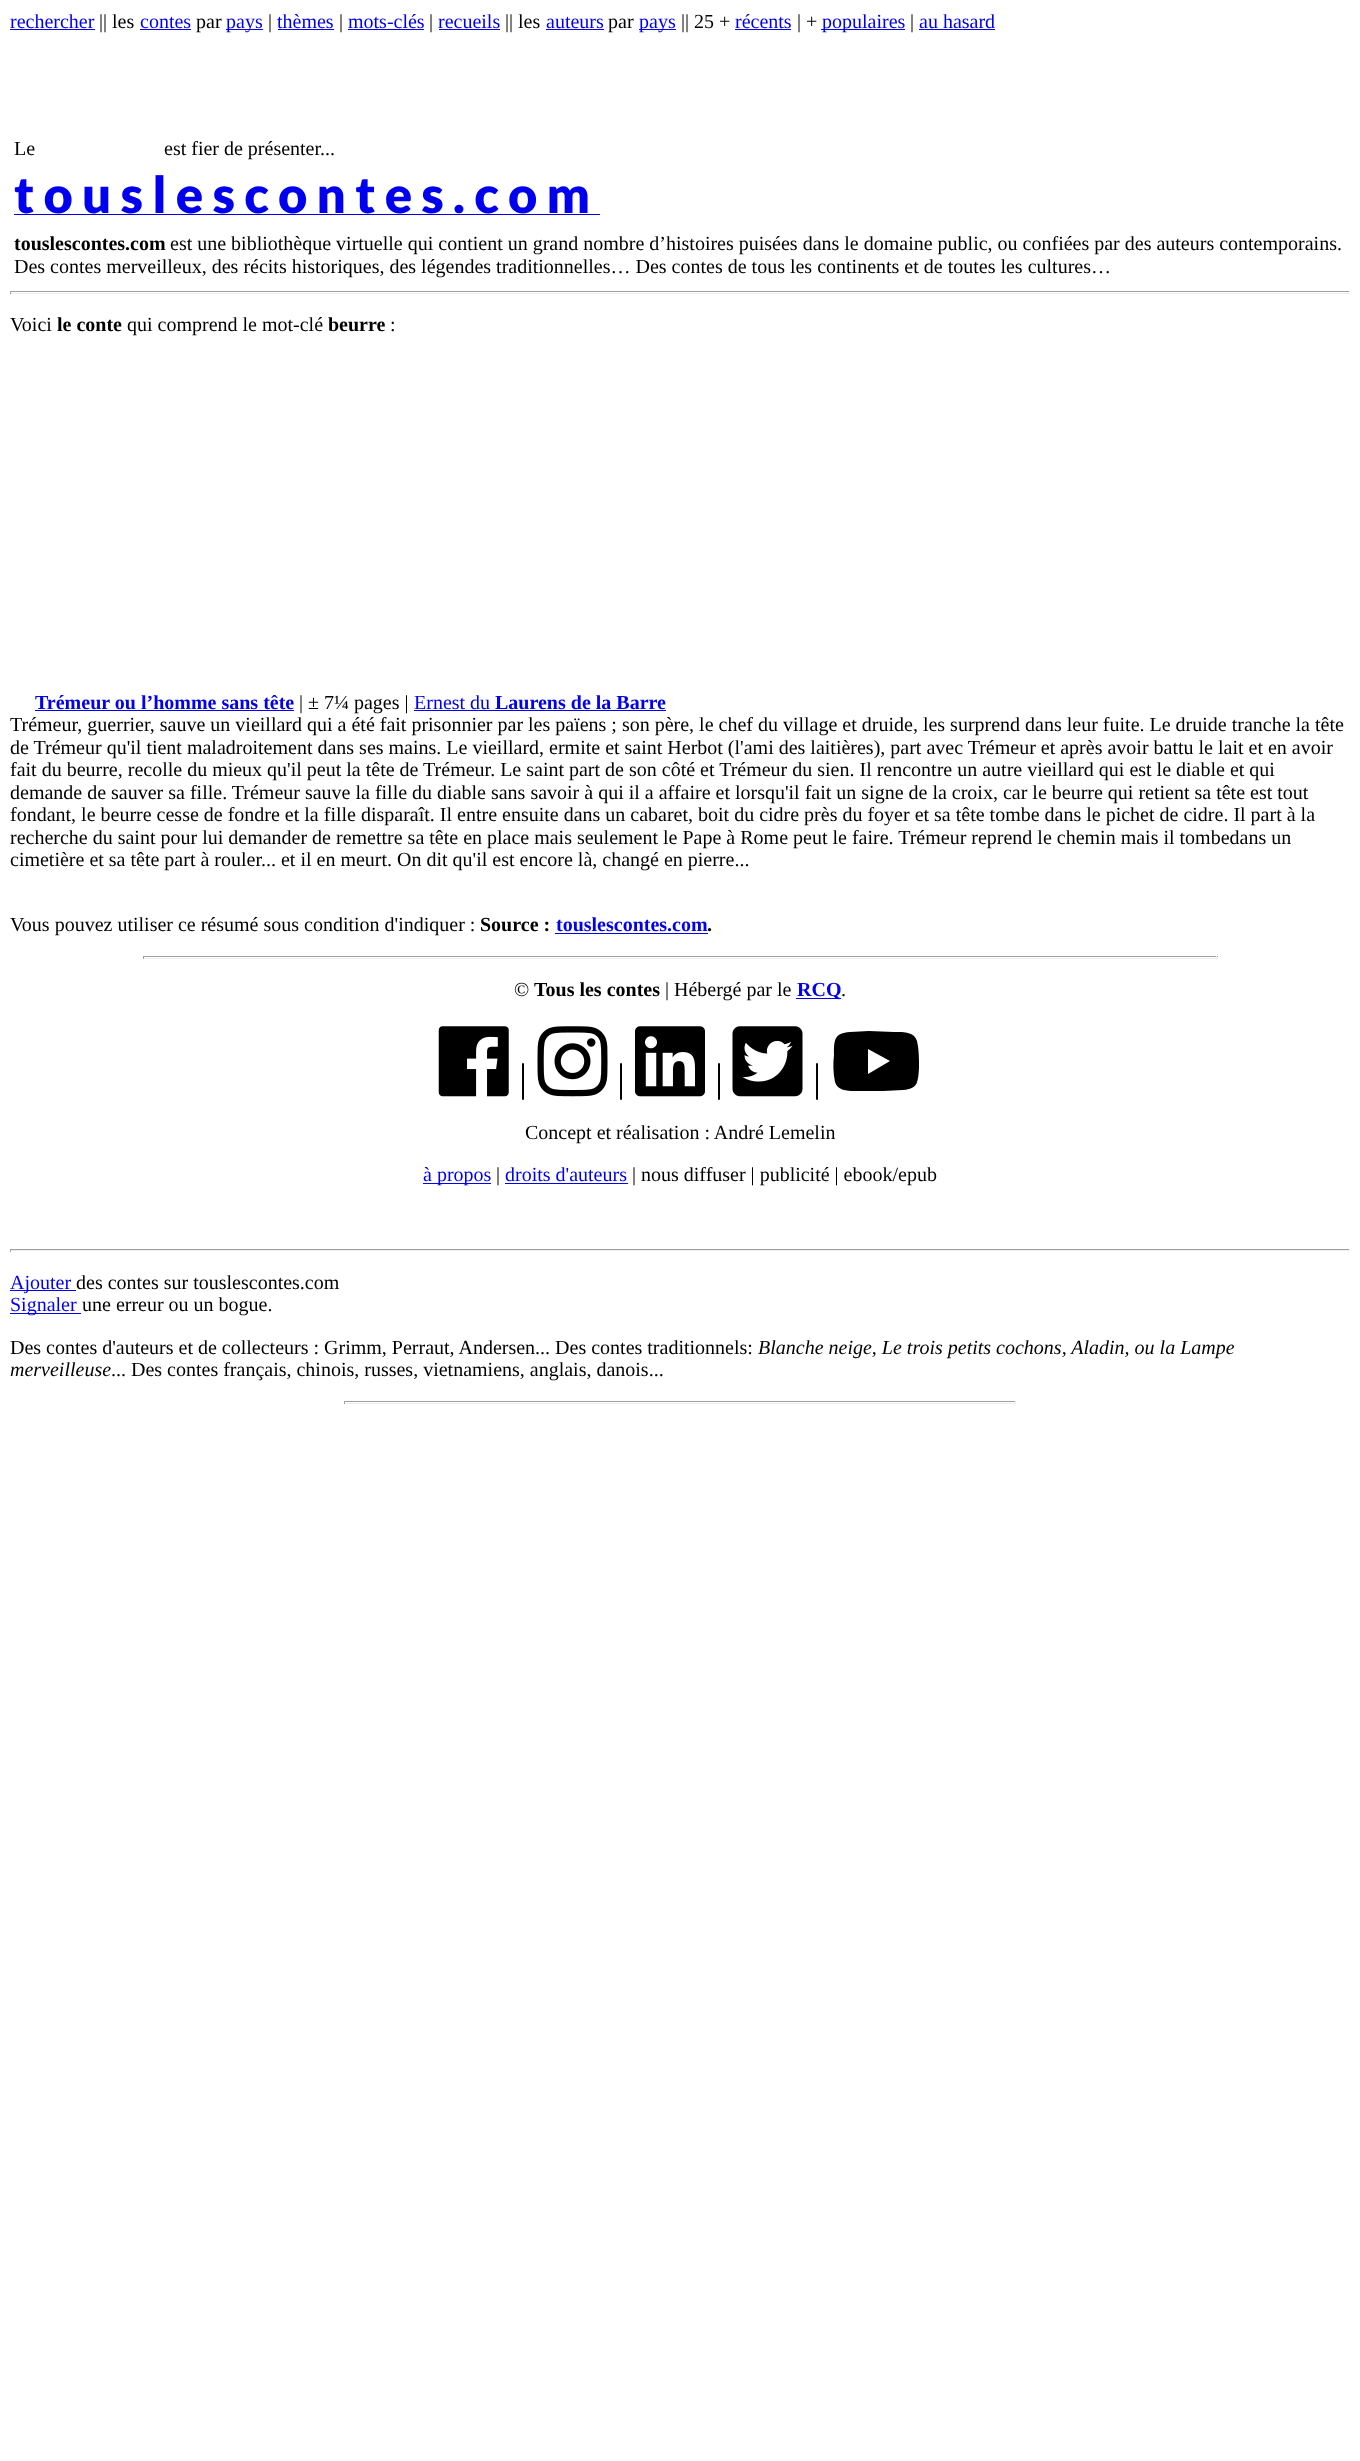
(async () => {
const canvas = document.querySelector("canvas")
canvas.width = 1360
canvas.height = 2461
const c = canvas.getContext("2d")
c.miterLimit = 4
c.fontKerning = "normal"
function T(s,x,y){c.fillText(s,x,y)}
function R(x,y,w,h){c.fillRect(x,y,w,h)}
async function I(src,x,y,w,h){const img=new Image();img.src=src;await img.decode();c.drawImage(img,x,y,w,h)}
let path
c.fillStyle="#fff"
R(0,0,1360,2461)
c.font="20px Liberation Serif"
c.fillStyle="#00e"
T("rechercher",10,28)
R(10,29,85,1)
c.fillStyle="#000"
T("|| les",99,28)
c.fillStyle="#00e"
T("contes",140,28)
c.fillStyle="#000"
T("par",196,28)
c.fillStyle="#00e"
R(140,29,51,1)
R(226,29,37,1)
T("pays",226,28)
c.fillStyle="#000"
T("|",268,28)
c.fillStyle="#00e"
T("thèmes",277,28)
R(278,29,56,1)
c.fillStyle="#000"
T("|",339,28)
c.fillStyle="#00e"
T("mots-clés",348,28)
R(348,29,76,1)
c.fillStyle="#000"
T("|",429,28)
c.fillStyle="#00e"
T("recueils",438,28)
R(439,29,61,1)
c.fillStyle="#000"
T("|| les",505,28)
c.fillStyle="#00e"
T("auteurs",546,28)
c.fillStyle="#000"
T("par",608,28)
c.fillStyle="#00e"
R(546,29,58,1)
R(639,29,37,1)
T("pays",639,28)
c.fillStyle="#000"
T("|| 25 +",681,28)
c.fillStyle="#00e"
T("récents",735,28)
R(735,29,56,1)
c.fillStyle="#000"
T("| +",797,28)
c.fillStyle="#00e"
R(821,29,84,1)
T("populaires",822,28)
c.fillStyle="#000"
T("|",910,28)
c.fillStyle="#00e"
T("au hasard",919,28)
R(919,29,76,1)
c.fillStyle="#000"
T("Le",14,155)
T("est fier de présenter...",164,155)
c.letterSpacing="9.25px"
c.font="900 50.6px Lato"
c.fillStyle="#00e"
T("touslescontes.com",14,213)
R(14,214,586,1)
c.letterSpacing="0px"
c.font="bold 20px Liberation Serif"
c.fillStyle="#000"
T("touslescontes.com",14,250)
c.font="20px Liberation Serif"
T("est une bibliothèque virtuelle qui contient un grand nombre d’histoires puisées dans le domaine public, ou confiées par des auteurs contemporains.",170,250)
T("Des contes merveilleux, des récits historiques, des légendes traditionnelles… Des contes de tous les continents et de toutes les cultures…",14,273)
c.fillStyle="#9f9f9f"
R(10,291,1340,1)
c.fillStyle="#eee"
R(1349,291,1,3)
R(10,293,1340,1)
c.fillStyle="#9f9f9f"
R(10,291,1,3)
c.fillStyle="#000"
T("Voici",10,331)
c.font="bold 20px Liberation Serif"
T("le conte",57,331)
c.font="20px Liberation Serif"
T("qui comprend le mot-clé",127,331)
c.font="bold 20px Liberation Serif"
T("beurre",328,331)
c.font="20px Liberation Serif"
T(":",390,331)
c.font="bold 20px Liberation Serif"
c.fillStyle="#00e"
T("Trémeur ou l’homme sans tête",35,709)
R(35,710,259,1)
c.font="20px Liberation Serif"
c.fillStyle="#000"
T("| ± 7¼ pages |",299,709)
c.fillStyle="#00e"
T("Ernest du",414,709)
R(414,710,252,1)
c.font="bold 20px Liberation Serif"
T("Laurens de la Barre",495,709)
c.font="20px Liberation Serif"
c.fillStyle="#000"
T("Trémeur, guerrier, sauve un vieillard qui a été fait prisonnier par les païens ; son père, le chef du village et druide, les surprend dans leur fuite. Le druide tranche la tête",10,731)
T("de Trémeur qu'il tient maladroitement dans ses mains. Le vieillard, ermite et saint Herbot (l'ami des laitières), part avec Trémeur et après avoir battu le lait et en avoir",10,754)
T("fait du beurre, recolle du mieux qu'il peut la tête de Trémeur. Le saint part de son côté et Trémeur du sien. Il rencontre un autre vieillard qui est le diable et qui",10,776)
T("demande de sauver sa fille. Trémeur sauve la fille du diable sans savoir à qui il a affaire et lorsqu'il fait un signe de la croix, car le beurre qui retient sa tête est tout",10,799)
T("fondant, le beurre cesse de fondre et la fille disparaît. Il entre ensuite dans un cabaret, boit du cidre près du foyer et sa tête tombe dans le pichet de cidre. Il part à la",10,821)
T("recherche du saint pour lui demander de remettre sa tête en place mais seulement le Pape à Rome peut le faire. Trémeur reprend le chemin mais il tombedans un",10,844)
T("cimetière et sa tête part à rouler... et il en meurt. On dit qu'il est encore là, changé en pierre...",10,866)
T("Vous pouvez utiliser ce résumé sous condition d'indiquer :",10,931)
c.font="bold 20px Liberation Serif"
T("Source :",480,931)
c.fillStyle="#00e"
T("touslescontes.com",556,931)
c.fillStyle="#000"
T(".",707,931)
c.fillStyle="#00e"
R(555,933,153,1)
c.fillStyle="#9f9f9f"
R(143,956,1075,1)
c.fillStyle="#eee"
R(1216,956,1,3)
R(143,958,1075,1)
c.fillStyle="#9f9f9f"
R(143,956,1,3)
c.font="20px Liberation Serif"
c.fillStyle="#000"
T("©",514,996)
c.font="bold 20px Liberation Serif"
T("Tous les contes",534,996)
c.font="20px Liberation Serif"
T("| Hébergé par le",665,996)
c.fillStyle="#00e"
R(796,998,45,1)
c.font="bold 20px Liberation Serif"
T("RCQ",797,996)
c.font="20px Liberation Serif"
c.fillStyle="#000"
T(".",841,996)
await I("1.png",438,1026,71,71)
c.font="40px Liberation Serif"
T("|",519,1091)
await I("2.png",537,1026,71,71)
T("|",617,1091)
await I("3.png",635,1026,70,71)
T("|",715,1091)
await I("4.png",732,1026,71,71)
T("|",813,1091)
path = new Path2D("M917 1041c-3-10-15-9-23-9l-25-1l-19 1c-16 1-16 8-16 23c-1 8-1 18 1 27c3 10 16 9 23 9h25l20-1c15-1 15-8 16-22c0-9 0-19-2-27zm-49 33v-25l22 12z")
c.fill(path)
c.font="20px Liberation Serif"
T("Concept et réalisation : André Lemelin",525,1139)
c.fillStyle="#00e"
R(423,1183,68,1)
T("à propos",423,1181)
c.fillStyle="#000"
T("|",496,1181)
c.fillStyle="#00e"
T("droits d'auteurs",505,1181)
R(505,1183,123,1)
c.fillStyle="#000"
T("| nous diffuser | publicité | ebook/epub",632,1181)
c.fillStyle="#9f9f9f"
R(10,1249,1340,1)
c.fillStyle="#eee"
R(1349,1249,1,3)
R(10,1250,1340,1)
c.fillStyle="#9f9f9f"
R(10,1249,1,3)
c.fillStyle="#00e"
R(10,1290,66,1)
T("Ajouter",10,1289)
c.fillStyle="#000"
T("des contes sur touslescontes.com",76,1289)
c.fillStyle="#00e"
R(10,1313,71,1)
T("Signaler",10,1311)
c.fillStyle="#000"
T("une erreur ou un bogue.",82,1311)
T("Des contes d'auteurs et de collecteurs : Grimm, Perraut, Andersen... Des contes traditionnels:",10,1354)
c.font="italic 20px Liberation Serif"
T("Blanche neige, Le trois petits cochons, Aladin, ou la Lampe",758,1354)
T("merveilleuse",10,1376)
c.font="20px Liberation Serif"
T("... Des contes français, chinois, russes, vietnamiens, anglais, danois...",111,1376)
c.fillStyle="#9f9f9f"
R(344,1401,672,1)
c.fillStyle="#eee"
R(1015,1401,1,3)
R(344,1403,672,1)
c.fillStyle="#9f9f9f"
R(344,1401,1,3)
})()
